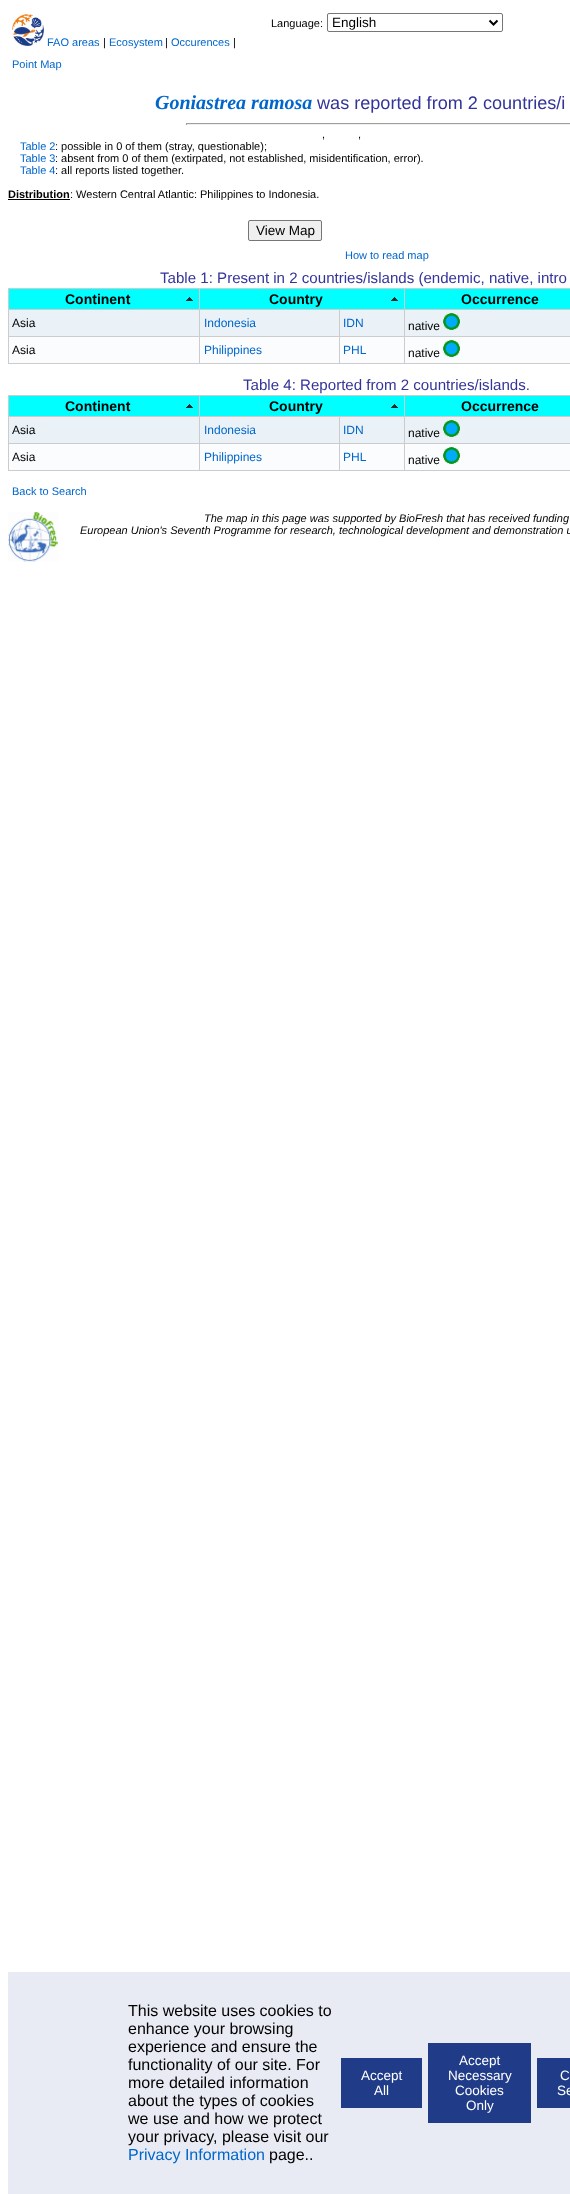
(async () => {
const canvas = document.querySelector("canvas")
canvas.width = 570
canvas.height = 2194
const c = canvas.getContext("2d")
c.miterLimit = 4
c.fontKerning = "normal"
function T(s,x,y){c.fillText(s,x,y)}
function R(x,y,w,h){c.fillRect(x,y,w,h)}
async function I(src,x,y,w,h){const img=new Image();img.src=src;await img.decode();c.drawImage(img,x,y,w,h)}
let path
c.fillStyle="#fff"
R(0,0,570,2194)
c.font="11px Liberation Sans"
c.fillStyle="#000"
T("Language:",271,27)
c.beginPath()
c.roundRect(327.5,13.5,175,18,1.5)
c.strokeStyle="#767676"
c.stroke()
path = new Path2D("M489.5 20.5l4 4l4-4")
c.strokeStyle="#000"
c.lineWidth=2
c.stroke(path)
c.font="13.5px Liberation Sans"
T("English",332,27)
await I("1.png",12,14,32,32)
c.font="11px Liberation Sans"
c.fillStyle="#06c"
T("FAO areas",47,46)
c.fillStyle="#000"
T("|",103,46)
c.fillStyle="#06c"
T("Ecosystem",109,46)
c.fillStyle="#000"
T("|",165,46)
c.fillStyle="#06c"
T("Occurences",171,46)
c.fillStyle="#000"
T("|",233,46)
c.fillStyle="#06c"
T("Point Map",12,68)
c.font="italic bold 20px Liberation Serif"
T("Goniastrea ramosa",155,109)
c.font="18.1px Liberation Sans"
c.fillStyle="#339"
T("was reported from 2 countries/i",317,109)
c.fillStyle="#9f9f9f"
R(186,123,384,1)
c.fillStyle="#eee"
R(186,124,384,1)
c.fillStyle="#9f9f9f"
R(186,123,1,2)
c.font="11px Liberation Sans"
c.fillStyle="#000"
T(",",322,138)
T(",",358,138)
c.fillStyle="#06c"
T("Table 2",20,150)
c.fillStyle="#000"
T(": possible in 0 of them (stray, questionable);",55,150)
c.fillStyle="#06c"
T("Table 3",20,162)
c.fillStyle="#000"
T(": absent from 0 of them (extirpated, not established, misidentification, error).",55,162)
c.fillStyle="#06c"
T("Table 4",20,174)
c.fillStyle="#000"
T(": all reports listed together.",55,174)
c.font="bold 11px Liberation Sans"
T("Distribution",8,198)
R(8,199,62,1)
c.font="11px Liberation Sans"
T(": Western Central Atlantic: Philippines to Indonesia.",70,198)
c.fillStyle="#fff"
R(221,200,8,1)
c.fillStyle="#efefef"
c.beginPath()
c.roundRect(248.5,220.5,73,20,1.5)
c.fill()
c.strokeStyle="#767676"
c.lineWidth=1
c.stroke()
c.font="13.5px Liberation Sans"
c.fillStyle="#000"
T("View Map",256,235)
c.font="11px Liberation Sans"
c.fillStyle="#06c"
T("How to read map",345,259)
c.font="15.1px Liberation Sans"
c.fillStyle="#339"
T("Table 1: Present in 2 countries/islands (endemic, native, intro",160,283)
c.fillStyle="#ccc"
R(8,288,562,1)
R(8,363,562,1)
R(8,288,1,76)
c.fillStyle="#0ff"
R(9,289,190,20)
await I("2.png",186,297,7,4)
c.font="bold 14px Liberation Sans"
c.fillStyle="#000"
T("Continent",65,304)
c.fillStyle="#0ff"
R(200,289,204,20)
await I("2.png",391,297,7,4)
c.fillStyle="#000"
T("Country",269,304)
c.fillStyle="#0ff"
R(405,289,165,20)
c.fillStyle="#000"
T("Occurrence",461,304)
c.fillStyle="#eaf2f7"
R(9,310,561,26)
c.fillStyle="#ccc"
R(8,309,562,1)
c.font="12px Liberation Sans"
c.fillStyle="#000"
T("Asia",12,327)
c.fillStyle="#06c"
T("Indonesia",204,327)
T("IDN",343,327)
c.fillStyle="#000"
T("native",408,330)
await I("3.png",443,313,17,17)
c.fillStyle="#fafcfe"
R(9,337,561,26)
c.fillStyle="#ccc"
R(8,336,562,1)
c.fillStyle="#000"
T("Asia",12,354)
c.fillStyle="#ccc"
R(199,288,1,76)
c.fillStyle="#06c"
T("Philippines",204,354)
c.fillStyle="#ccc"
R(339,309,1,55)
c.fillStyle="#06c"
T("PHL",343,354)
c.fillStyle="#ccc"
R(404,288,1,76)
c.fillStyle="#000"
T("native",408,357)
await I("4.png",443,340,17,17)
c.font="15.1px Liberation Sans"
c.fillStyle="#339"
T("Table 4: Reported from 2 countries/islands.",243,390)
c.fillStyle="#ccc"
R(8,395,562,1)
R(8,470,562,1)
R(8,395,1,76)
c.fillStyle="#0ff"
R(9,396,190,20)
await I("2.png",186,404,7,4)
c.font="bold 14px Liberation Sans"
c.fillStyle="#000"
T("Continent",65,411)
c.fillStyle="#0ff"
R(200,396,204,20)
await I("2.png",391,404,7,4)
c.fillStyle="#000"
T("Country",269,411)
c.fillStyle="#0ff"
R(405,396,165,20)
c.fillStyle="#000"
T("Occurrence",461,411)
c.fillStyle="#eaf2f7"
R(9,417,561,26)
c.fillStyle="#ccc"
R(8,416,562,1)
c.font="12px Liberation Sans"
c.fillStyle="#000"
T("Asia",12,434)
c.fillStyle="#06c"
T("Indonesia",204,434)
T("IDN",343,434)
c.fillStyle="#000"
T("native",408,437)
await I("5.png",443,420,17,17)
c.fillStyle="#fafcfe"
R(9,444,561,26)
c.fillStyle="#ccc"
R(8,443,562,1)
c.fillStyle="#000"
T("Asia",12,461)
c.fillStyle="#ccc"
R(199,395,1,76)
c.fillStyle="#06c"
T("Philippines",204,461)
c.fillStyle="#ccc"
R(339,416,1,55)
c.fillStyle="#06c"
T("PHL",343,461)
c.fillStyle="#ccc"
R(404,395,1,76)
c.fillStyle="#000"
T("native",408,464)
await I("6.png",443,447,17,17)
c.font="11px Liberation Sans"
c.fillStyle="#06c"
T("Back to Search",12,495)
await I("7.png",8,512,50,50)
c.font="italic 11px Liberation Sans"
c.fillStyle="#000"
T("The map in this page was supported by BioFresh that has received funding",204,522)
T("European Union's Seventh Programme for research, technological development and demonstration u",80,534)
c.fillStyle="#e8ebf3"
R(8,1972,562,222)
c.font="16px Liberation Sans"
c.fillStyle="#000"
T("This website uses cookies to",128,2016)
T("enhance your browsing",128,2034)
T("experience and ensure the",128,2052)
T("functionality of our site. For",128,2070)
T("more detailed information",128,2088)
T("about the types of cookies",128,2106)
T("we use and how we protect",128,2124)
T("your privacy, please visit our",128,2142)
c.fillStyle="#06c"
T("Privacy Information",128,2160)
c.fillStyle="#000"
T("page..",269,2160)
c.fillStyle="#203c88"
R(341,2058,81,50)
c.font="13.5px Liberation Sans"
c.fillStyle="#fff"
T("Accept",361,2080)
T("All",374,2095)
c.fillStyle="#203c88"
R(428,2043,103,80)
c.fillStyle="#fff"
T("Accept",459,2065)
T("Necessary",448,2080)
T("Cookies",455,2095)
T("Only",466,2110)
c.fillStyle="#203c88"
R(537,2058,33,50)
c.fillStyle="#fff"
T("C",560,2080)
T("Se",557,2095)
})()
